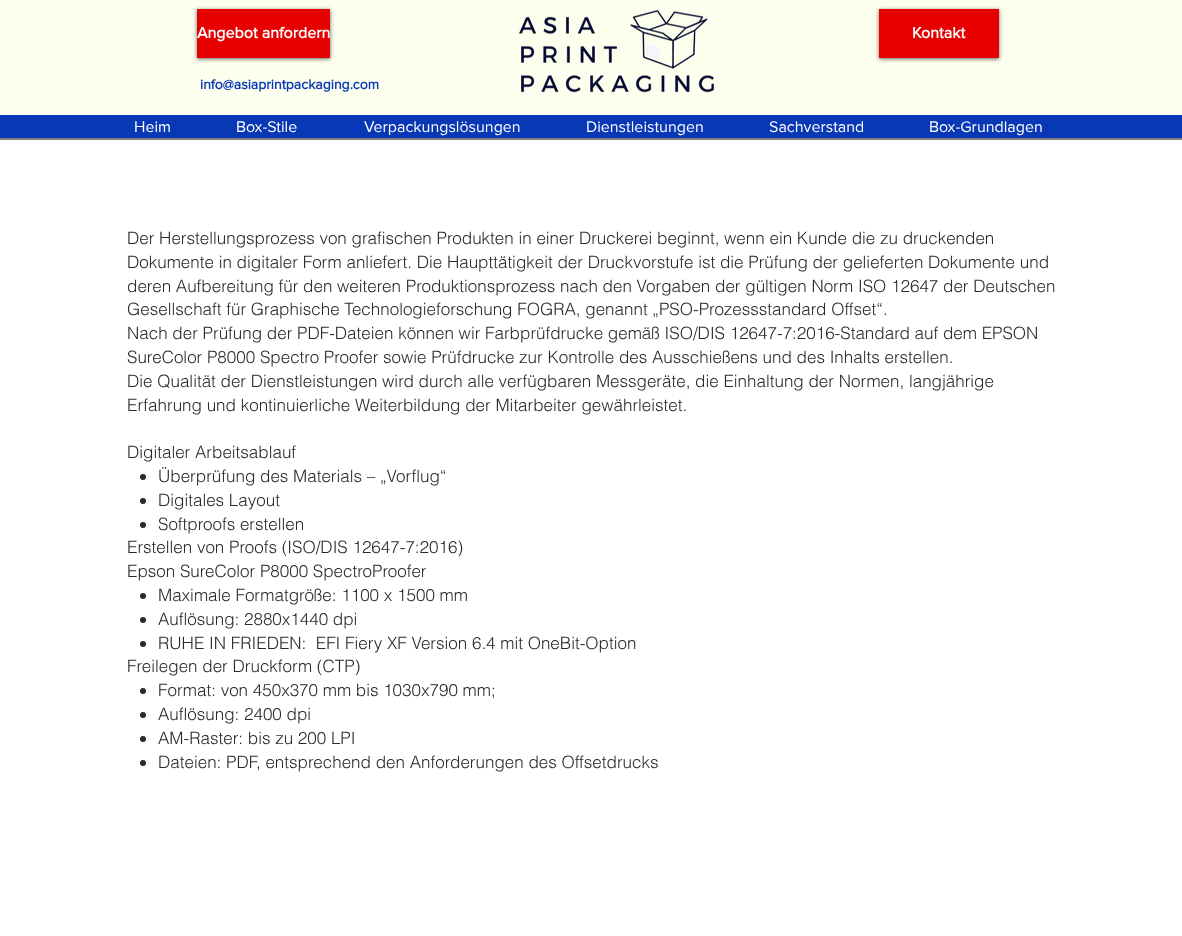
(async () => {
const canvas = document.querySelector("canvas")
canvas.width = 1182
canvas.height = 936
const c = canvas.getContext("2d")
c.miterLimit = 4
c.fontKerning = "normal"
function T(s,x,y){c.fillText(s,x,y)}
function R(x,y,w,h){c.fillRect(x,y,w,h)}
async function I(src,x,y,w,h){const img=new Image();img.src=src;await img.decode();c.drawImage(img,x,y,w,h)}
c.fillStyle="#fff"
R(0,0,1182,936)
c.fillStyle="#fdffee"
R(0,0,1182,115)
c.fillStyle="#808080"
R(0,138,1182,2)
c.fillStyle="#00000099"
c.filter="blur(2px)"
c.beginPath()
c.rect(197,10,133,49)
c.fill()
c.filter="none"
c.fillStyle="#e60000"
R(197,9,133,49)
c.font="bold 16px Proxima Nova"
c.fillStyle="#fffffe"
T("Angebot anfordern",197,38)
await I("1.png",519,9,195,84)
c.fillStyle="#00000099"
c.filter="blur(2px)"
c.beginPath()
c.rect(879,10,120,49)
c.fill()
c.filter="none"
c.fillStyle="#e60000"
R(879,9,120,49)
c.fillStyle="#fffffe"
T("Kontakt",912,38)
c.font="bold 14px 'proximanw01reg'"
c.fillStyle="#0938b7"
T("info@asiaprintpackaging.com",200,89)
R(0,115,1182,23)
c.font="16px Proxima Nova"
c.fillStyle="#fffffe"
T("Heim",134,132)
T("Box-Stile",236,132)
T("Verpackungslösungen",364,132)
T("Dienstleistungen",586,132)
T("Sachverstand",769,132)
T("Box-Grundlagen",929,132)
c.font="300 17px helvetica"
c.fillStyle="#2a2a2a"
T("Der Herstellungsprozess von grafischen Produkten in einer Druckerei beginnt, wenn ein Kunde die zu druckenden",127,244)
T("Dokumente in digitaler Form anliefert. Die Haupttätigkeit der Druckvorstufe ist die Prüfung der gelieferten Dokumente und",127,268)
T("deren Aufbereitung für den weiteren Produktionsprozess nach den Vorgaben der gültigen Norm ISO 12647 der Deutschen",127,292)
T("Gesellschaft für Graphische Technologieforschung FOGRA, genannt „PSO-Prozessstandard Offset“.",127,315)
T("Nach der Prüfung der PDF-Dateien können wir Farbprüfdrucke gemäß ISO/DIS 12647-7:2016-Standard auf dem EPSON",127,339)
T("SureColor P8000 Spectro Proofer sowie Prüfdrucke zur Kontrolle des Ausschießens und des Inhalts erstellen.",127,363)
T("Die Qualität der Dienstleistungen wird durch alle verfügbaren Messgeräte, die Einhaltung der Normen, langjährige",127,387)
T("Erfahrung und kontinuierliche Weiterbildung der Mitarbeiter gewährleistet.",127,411)
T("Digitaler Arbeitsablauf",127,458)
c.beginPath()
c.arc(143,477,3,0,7)
c.fill()
T("Überprüfung des Materials – „Vorflug“",158,482)
c.beginPath()
c.arc(143,501,3,0,7)
c.fill()
T("Digitales Layout",158,506)
c.beginPath()
c.arc(143,525,3,0,7)
c.fill()
T("Softproofs erstellen",158,530)
T("Erstellen von Proofs (ISO/DIS 12647-7:2016)",127,553)
T("Epson SureColor P8000 SpectroProofer",127,577)
c.beginPath()
c.arc(143,596,3,0,7)
c.fill()
T("Maximale Formatgröße: 1100 x 1500 mm",158,601)
c.beginPath()
c.arc(143,620,3,0,7)
c.fill()
T("Auflösung: 2880x1440 dpi",158,625)
c.beginPath()
c.arc(143,644,3,0,7)
c.fill()
T("RUHE IN FRIEDEN:  EFI Fiery XF Version 6.4 mit OneBit-Option",158,649)
T("Freilegen der Druckform (CTP)",127,672)
c.beginPath()
c.arc(143,691,3,0,7)
c.fill()
T("Format: von 450x370 mm bis 1030x790 mm;",158,696)
c.beginPath()
c.arc(143,715,3,0,7)
c.fill()
T("Auflösung: 2400 dpi",158,720)
c.beginPath()
c.arc(143,739,3,0,7)
c.fill()
T("AM-Raster: bis zu 200 LPI",158,744)
c.beginPath()
c.arc(143,763,3,0,7)
c.fill()
T("Dateien: PDF, entsprechend den Anforderungen des Offsetdrucks",158,768)
})()
